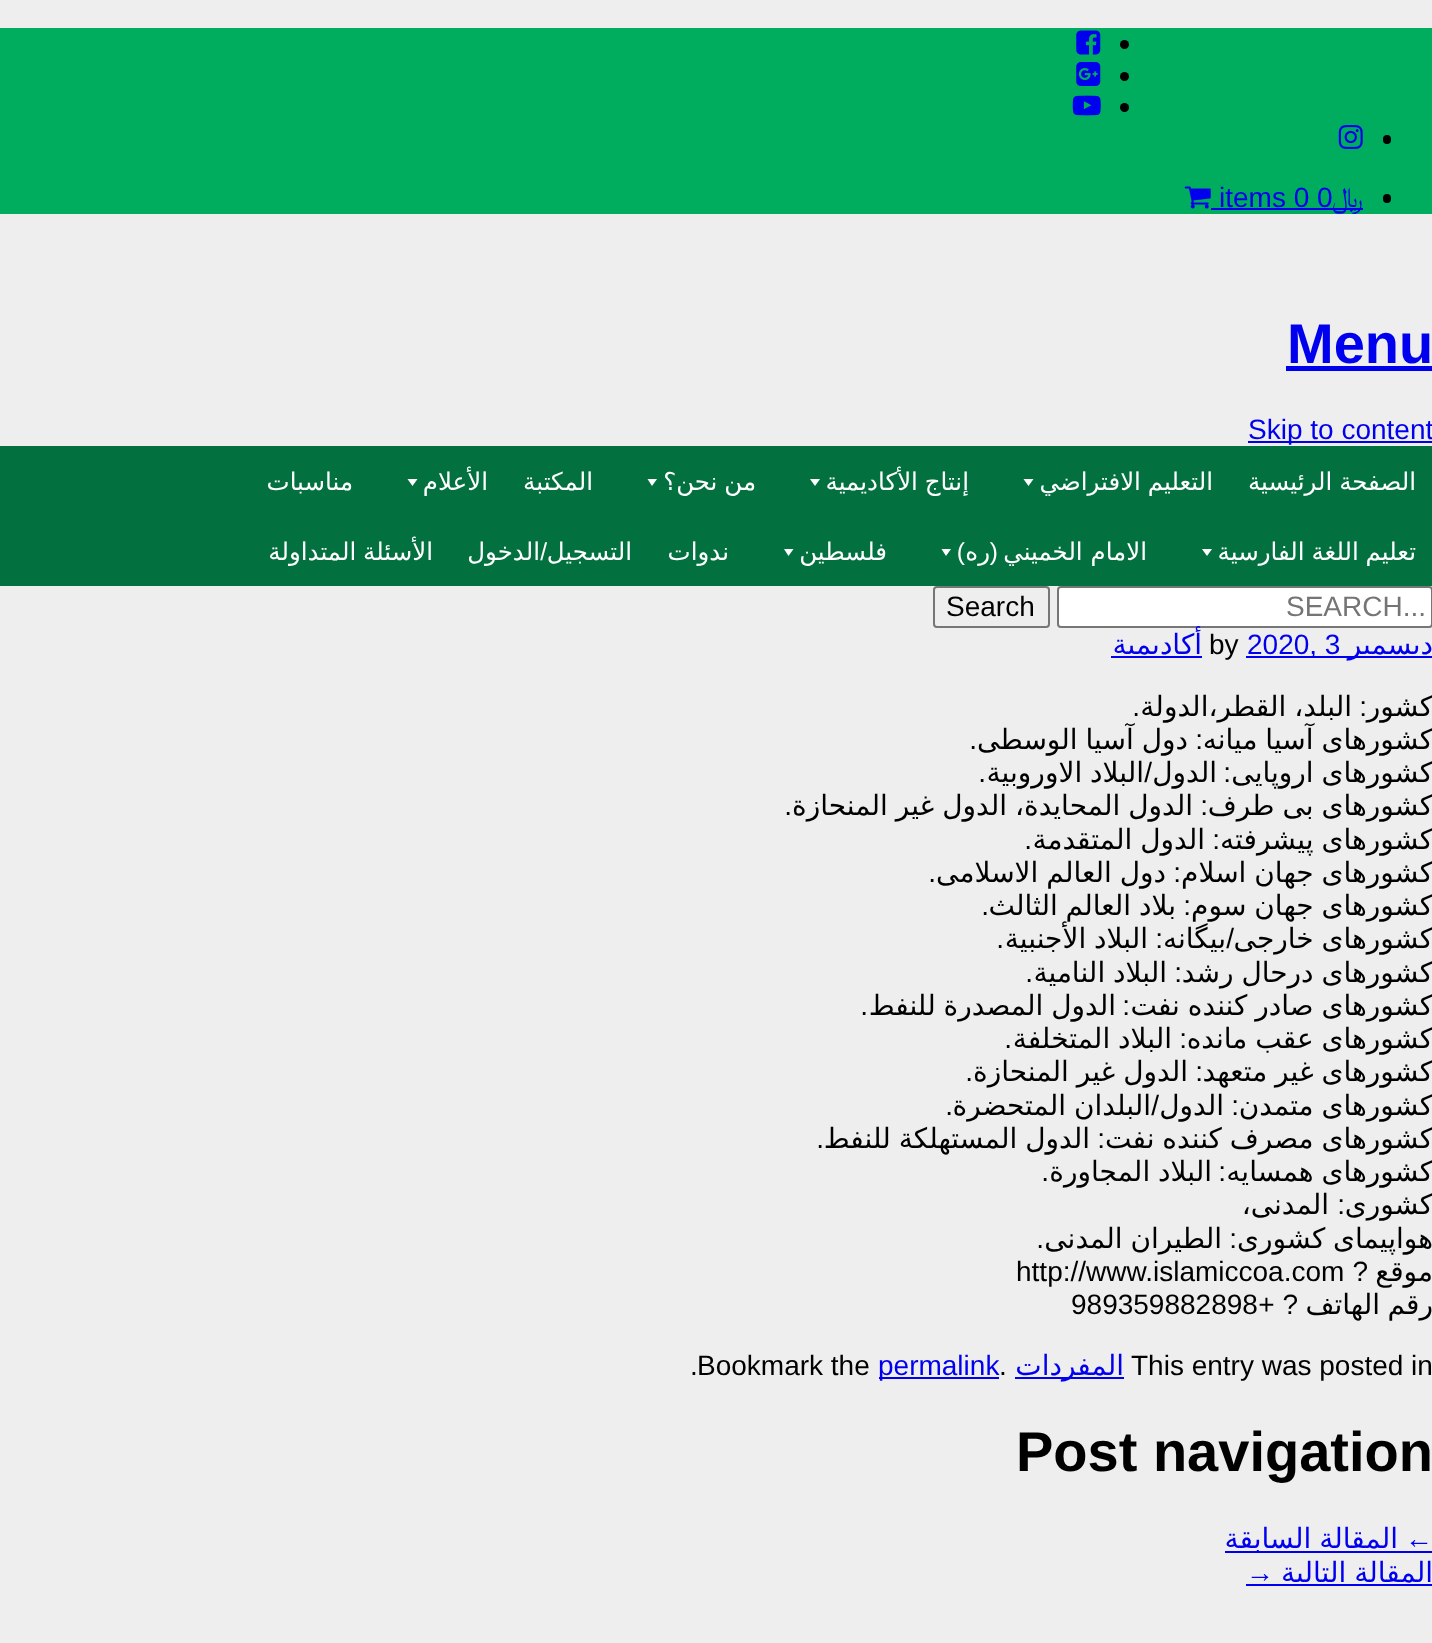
(async () => {
const canvas = document.querySelector("canvas")
canvas.width = 1432
canvas.height = 1643
const c = canvas.getContext("2d")
c.miterLimit = 4
c.fontKerning = "normal"
function T(s,x,y){c.fillText(s,x,y)}
function R(x,y,w,h){c.fillRect(x,y,w,h)}
function Q(x,y,w,h,r){c.beginPath();c.roundRect(x,y,w,h,r);c.fill()}
async function I(src,x,y,w,h){const img=new Image();img.src=src;await img.decode();c.drawImage(img,x,y,w,h)}
let path
c.fillStyle="#eee"
R(0,0,1432,1643)
c.fillStyle="#00ad5f"
R(0,28,1432,186)
c.fillStyle="#000"
c.beginPath()
c.arc(1124.5,44.5,4.5,0,7)
c.fill()
await I("1.png",1076,30,25,25)
c.beginPath()
c.arc(1124.5,76.5,4.5,0,7)
c.fill()
await I("2.png",1076,62,25,24)
c.beginPath()
c.arc(1124.5,107.5,4.5,0,7)
c.fill()
await I("3.png",1072,95,29,21)
Q(1383,135,8,9,4)
await I("4.png",1338,125,25,24)
Q(1383,194,8,9,4)
c.fillStyle="#00e"
R(1309,208,54,2)
c.direction="rtl"
c.font="28px FreeSerif"
T("﷼",1363,207)
c.direction="ltr"
c.font="28px Liberation Sans"
T("0",1317,207)
T("items 0",1219,207)
R(1211,208,98,2)
await I("5.png",1184,186,27,23)
c.font="bold 56px Liberation Sans"
T("Menu",1287,363)
R(1286,366,146,5)
R(1248,441,184,2)
c.font="28px Liberation Sans"
T("Skip to content",1248,439)
c.fillStyle="#02713f"
R(0,446,1432,140)
c.wordSpacing="-1px"
c.direction="rtl"
c.font="24.5px DejaVu Sans"
c.fillStyle="#fff"
T("الصفحة الرئيسية",1416,490)
T("التعليم الافتراضي",1213,490)
path = new Path2D("M1033.5 479l-5 7l-5-7z")
c.fill(path)
T("إنتاج الأكاديمية",969,490)
path = new Path2D("M820 479l-5 7l-5-7z")
c.fill(path)
T("من نحن؟",756,490)
path = new Path2D("M657 479l-5 7l-4.5-7z")
c.fill(path)
c.wordSpacing="0px"
T("المکتبة",593,490)
T("الأعلام",488,490)
path = new Path2D("M417.5 479l-5 7l-5-7z")
c.fill(path)
T("مناسبات",353,490)
c.wordSpacing="-1px"
T("تعلیم اللغة الفارسیة",1416,560)
path = new Path2D("M1212 549l-5 7l-5-7z")
c.fill(path)
c.wordSpacing="0px"
T("الامام الخميني",1147,560)
c.font="24.5px Liberation Sans"
T("(",998,560)
c.font="24.5px DejaVu Sans"
T("ره",990,560)
c.font="24.5px Liberation Sans"
T(")",965,560)
path = new Path2D("M951 549l-5 7l-4.5-7z")
c.fill(path)
c.font="24.5px DejaVu Sans"
T("فلسطین",887,560)
path = new Path2D("M793.5 549l-5 7l-4.5-7z")
c.fill(path)
T("ندوات",729,560)
T("التسجیل",632,560)
c.font="24.5px Liberation Sans"
T("/",547,560)
c.font="24.5px DejaVu Sans"
T("الدخول",540,560)
c.wordSpacing="-1px"
T("الأسئلة المتداولة",433,560)
c.beginPath()
c.roundRect(1058,587,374,40,3)
c.fill()
c.strokeStyle="#767676"
c.lineWidth=2
c.stroke()
c.wordSpacing="0px"
c.direction="ltr"
c.font="28px Liberation Sans"
c.fillStyle="#757575"
T("SEARCH...",1286,616)
c.beginPath()
c.roundRect(934,587,115,40,3)
c.stroke()
c.fillStyle="#000"
T("Search",946,616)
c.fillStyle="#00e"
R(1246,656,186,2)
c.direction="rtl"
c.font="28px DejaVu Sans"
T("ديسمبر",1433,654)
c.direction="ltr"
c.font="28px Liberation Sans"
T("2020, 3",1247,654)
c.fillStyle="#000"
T("by",1209,654)
c.fillStyle="#00e"
R(1111,656,91,2)
c.direction="rtl"
c.font="28px DejaVu Sans"
T("أکادیمیة",1202,654)
c.fillStyle="#000"
T("کشور",1433,716)
c.font="28px Liberation Sans"
T(":",1367,716)
c.wordSpacing="-1px"
c.font="28px DejaVu Sans"
T("البلد، القطر،الدولة",1352,716)
c.wordSpacing="0px"
c.font="28px Liberation Sans"
T(".",1140,716)
c.wordSpacing="-1px"
c.font="28px DejaVu Sans"
T("کشورهای آسیا میانه",1433,749)
c.wordSpacing="0px"
c.font="28px Liberation Sans"
T(":",1203,749)
c.wordSpacing="-1px"
c.font="28px DejaVu Sans"
T("دول آسیا الوسطی",1188,749)
c.wordSpacing="0px"
c.font="28px Liberation Sans"
T(".",977,749)
c.wordSpacing="-1px"
c.font="28px DejaVu Sans"
T("کشورهای اروپایی",1433,782)
c.wordSpacing="0px"
c.font="28px Liberation Sans"
T(":",1231,782)
c.font="28px DejaVu Sans"
T("الدول",1217,782)
c.font="28px Liberation Sans"
T("/",1152,782)
c.wordSpacing="-1px"
c.font="28px DejaVu Sans"
T("البلاد الاوروبیة",1144,782)
c.wordSpacing="0px"
c.font="28px Liberation Sans"
T(".",986,782)
c.wordSpacing="-1px"
c.font="28px DejaVu Sans"
T("کشورهای بی طرف",1433,815)
c.wordSpacing="0px"
c.font="28px Liberation Sans"
T(":",1208,815)
c.wordSpacing="-1px"
c.font="28px DejaVu Sans"
T("الدول المحایدة، الدول غیر المنحازة",1193,815)
c.wordSpacing="0px"
c.font="28px Liberation Sans"
T(".",792,815)
c.wordSpacing="-1px"
c.font="28px DejaVu Sans"
T("کشورهای پیشرفته",1433,849)
c.wordSpacing="0px"
c.font="28px Liberation Sans"
T(":",1220,849)
c.wordSpacing="-1px"
c.font="28px DejaVu Sans"
T("الدول المتقدمة",1205,849)
c.wordSpacing="0px"
c.font="28px Liberation Sans"
T(".",1032,849)
c.wordSpacing="-1px"
c.font="28px DejaVu Sans"
T("کشورهای جهان اسلام",1433,882)
c.wordSpacing="0px"
c.font="28px Liberation Sans"
T(":",1181,882)
c.wordSpacing="-1px"
c.font="28px DejaVu Sans"
T("دول العالم الاسلامی",1166,882)
c.wordSpacing="0px"
c.font="28px Liberation Sans"
T(".",936,882)
c.wordSpacing="-1px"
c.font="28px DejaVu Sans"
T("کشورهای جهان سوم",1433,915)
c.wordSpacing="0px"
c.font="28px Liberation Sans"
T(":",1191,915)
c.wordSpacing="-1px"
c.font="28px DejaVu Sans"
T("بلاد العالم الثالث",1176,915)
c.wordSpacing="0px"
c.font="28px Liberation Sans"
T(".",989,915)
c.wordSpacing="-1px"
c.font="28px DejaVu Sans"
T("کشورهای خارجی",1433,948)
c.wordSpacing="0px"
c.font="28px Liberation Sans"
T("/",1234,948)
c.font="28px DejaVu Sans"
T("بیگانه",1226,948)
c.font="28px Liberation Sans"
T(":",1163,948)
c.wordSpacing="-1px"
c.font="28px DejaVu Sans"
T("البلاد الأجنبیة",1148,948)
c.wordSpacing="0px"
c.font="28px Liberation Sans"
T(".",1004,948)
c.wordSpacing="-1px"
c.font="28px DejaVu Sans"
T("کشورهای درحال رشد",1433,982)
c.wordSpacing="0px"
c.font="28px Liberation Sans"
T(":",1182,982)
c.wordSpacing="-1px"
c.font="28px DejaVu Sans"
T("البلاد النامیة",1167,982)
c.wordSpacing="0px"
c.font="28px Liberation Sans"
T(".",1033,982)
c.wordSpacing="-1px"
c.font="28px DejaVu Sans"
T("کشورهای صادر کننده نفت",1433,1015)
c.wordSpacing="0px"
c.font="28px Liberation Sans"
T(":",1130,1015)
c.wordSpacing="-1px"
c.font="28px DejaVu Sans"
T("الدول المصدرة للنفط",1116,1015)
c.wordSpacing="0px"
c.font="28px Liberation Sans"
T(".",868,1015)
c.wordSpacing="-1px"
c.font="28px DejaVu Sans"
T("کشورهای عقب مانده",1433,1048)
c.wordSpacing="0px"
c.font="28px Liberation Sans"
T(":",1187,1048)
c.wordSpacing="-1px"
c.font="28px DejaVu Sans"
T("البلاد المتخلفة",1172,1048)
c.wordSpacing="0px"
c.font="28px Liberation Sans"
T(".",1012,1048)
c.wordSpacing="-1px"
c.font="28px DejaVu Sans"
T("کشورهای غیر متعهد",1433,1081)
c.wordSpacing="0px"
c.font="28px Liberation Sans"
T(":",1203,1081)
c.wordSpacing="-1px"
c.font="28px DejaVu Sans"
T("الدول غیر المنحازة",1188,1081)
c.wordSpacing="0px"
c.font="28px Liberation Sans"
T(".",973,1081)
c.wordSpacing="-1px"
c.font="28px DejaVu Sans"
T("کشورهای متمدن",1433,1115)
c.wordSpacing="0px"
c.font="28px Liberation Sans"
T(":",1239,1115)
c.font="28px DejaVu Sans"
T("الدول",1224,1115)
c.font="28px Liberation Sans"
T("/",1159,1115)
c.wordSpacing="-1px"
c.font="28px DejaVu Sans"
T("البلدان المتحضرة",1151,1115)
c.wordSpacing="0px"
c.font="28px Liberation Sans"
T(".",953,1115)
c.wordSpacing="-1px"
c.font="28px DejaVu Sans"
T("کشورهای مصرف کننده نفت",1433,1148)
c.wordSpacing="0px"
c.font="28px Liberation Sans"
T(":",1105,1148)
c.wordSpacing="-1px"
c.font="28px DejaVu Sans"
T("الدول المستهلکة للنفط",1090,1148)
c.wordSpacing="0px"
c.font="28px Liberation Sans"
T(".",824,1148)
c.wordSpacing="-1px"
c.font="28px DejaVu Sans"
T("کشورهای همسایه",1433,1181)
c.wordSpacing="0px"
c.font="28px Liberation Sans"
T(":",1226,1181)
c.wordSpacing="-1px"
c.font="28px DejaVu Sans"
T("البلاد المجاورة",1212,1181)
c.wordSpacing="0px"
c.font="28px Liberation Sans"
T(".",1049,1181)
c.font="28px DejaVu Sans"
T("کشوری",1433,1214)
c.font="28px Liberation Sans"
T(":",1345,1214)
c.font="28px DejaVu Sans"
T("المدنی،",1329,1214)
c.wordSpacing="-1px"
T("هواپیمای کشوری",1433,1248)
c.wordSpacing="0px"
c.font="28px Liberation Sans"
T(":",1237,1248)
c.wordSpacing="-1px"
c.font="28px DejaVu Sans"
T("الطیران المدنی",1222,1248)
c.wordSpacing="0px"
c.font="28px Liberation Sans"
T(".",1044,1248)
c.font="28px DejaVu Sans"
T("موقع",1433,1281)
c.font="28px Liberation Sans"
T("?",1368,1281)
c.direction="ltr"
T("http://www.islamiccoa.com",1016,1281)
c.direction="rtl"
c.font="28px DejaVu Sans"
T("رقم",1433,1314)
T("الهاتف",1380,1314)
c.font="28px Liberation Sans"
T("? +",1298,1314)
c.direction="ltr"
T("989359882898",1071,1314)
T("This entry was posted in",1131,1375)
c.fillStyle="#00e"
R(1015,1377,109,2)
c.direction="rtl"
c.font="28px DejaVu Sans"
T("المفردات",1124,1375)
c.direction="ltr"
c.font="28px Liberation Sans"
c.fillStyle="#000"
T(".",999,1375)
c.fillStyle="#00e"
R(879,1377,120,2)
T("permalink",878,1375)
c.fillStyle="#000"
T("Bookmark the",697,1375)
T(".",690,1375)
c.font="bold 56px Liberation Sans"
T("Post navigation",1016,1471)
c.font="28px Liberation Sans"
c.fillStyle="#00e"
T("←",1405,1548)
R(1225,1551,207,2)
c.wordSpacing="-1px"
c.direction="rtl"
c.font="28px DejaVu Sans"
T("المقالة السابقة",1398,1548)
R(1246,1584,186,2)
T("المقالة التالية",1433,1582)
c.wordSpacing="0px"
c.direction="ltr"
c.font="28px Liberation Sans"
T("→",1246,1582)
})()
